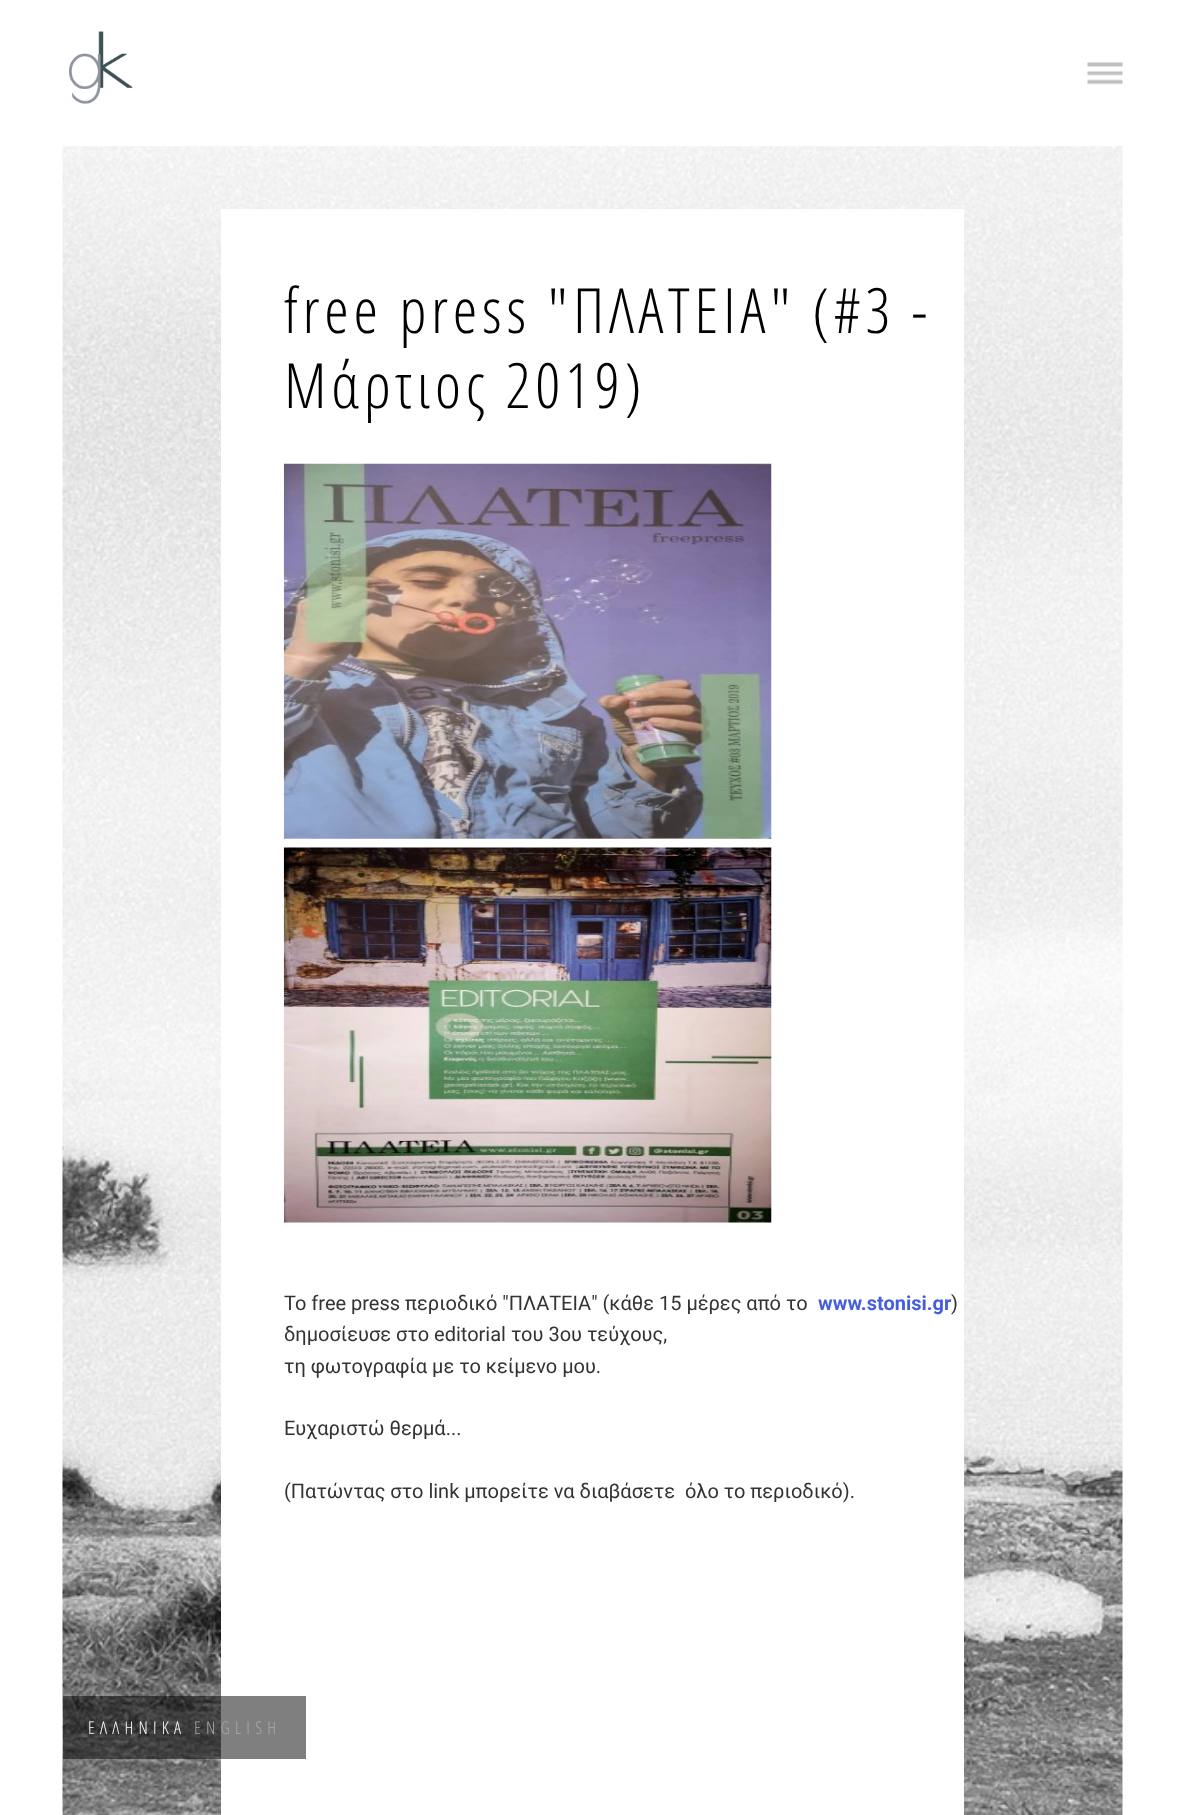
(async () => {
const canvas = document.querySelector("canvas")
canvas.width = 1185
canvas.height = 1815
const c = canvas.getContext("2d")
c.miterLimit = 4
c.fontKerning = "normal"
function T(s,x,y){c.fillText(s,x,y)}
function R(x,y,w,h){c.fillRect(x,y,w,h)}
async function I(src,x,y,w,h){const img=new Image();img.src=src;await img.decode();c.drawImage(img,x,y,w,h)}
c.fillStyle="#fff"
R(0,0,1185,1815)
await I("1.png",68,31,65,73)
await I("2.png",1087,62,36,23)
await I("3.png",62,146,1061,1669)
R(221,209,743,1606)
c.letterSpacing="4.7px"
c.font="300 62.5px Open Sans Condensed"
c.fillStyle="#000"
T("free press \"ΠΛΑΤΕΙΑ\" (#3 -",284,333)
T("Μάρτιος 2019)",284,408)
await I("4.png",283,463,489,376)
await I("5.png",283,847,489,376)
c.letterSpacing="0px"
c.font="20px Roboto"
c.fillStyle="#333"
T("Το free press περιοδικό \"ΠΛΑΤΕΙΑ\" (κάθε 15 μέρες από το",284,1310)
c.font="bold 20px Roboto"
c.fillStyle="#445ee0"
T("www.stonisi.gr",818,1310)
c.font="20px Roboto"
c.fillStyle="#333"
T(")",951,1310)
T("δημοσίευσε στο editorial του 3ου τεύχους,",284,1341)
T("τη φωτογραφία με το κείμενο μου.",284,1373)
T("Ευχαριστώ θερμά...",284,1435)
T("(Πατώντας στο link μπορείτε να διαβάσετε  όλο το περιοδικό).",284,1498)
c.fillStyle="#00000080"
R(63,1696,243,63)
c.letterSpacing="5.25px"
c.font="300 17.5px Open Sans Condensed"
c.fillStyle="#fff"
T("ΕΛΛΗΝΙΚΑ",88,1734)
c.fillStyle="#aaa"
T("ENGLISH",194,1734)
})()
